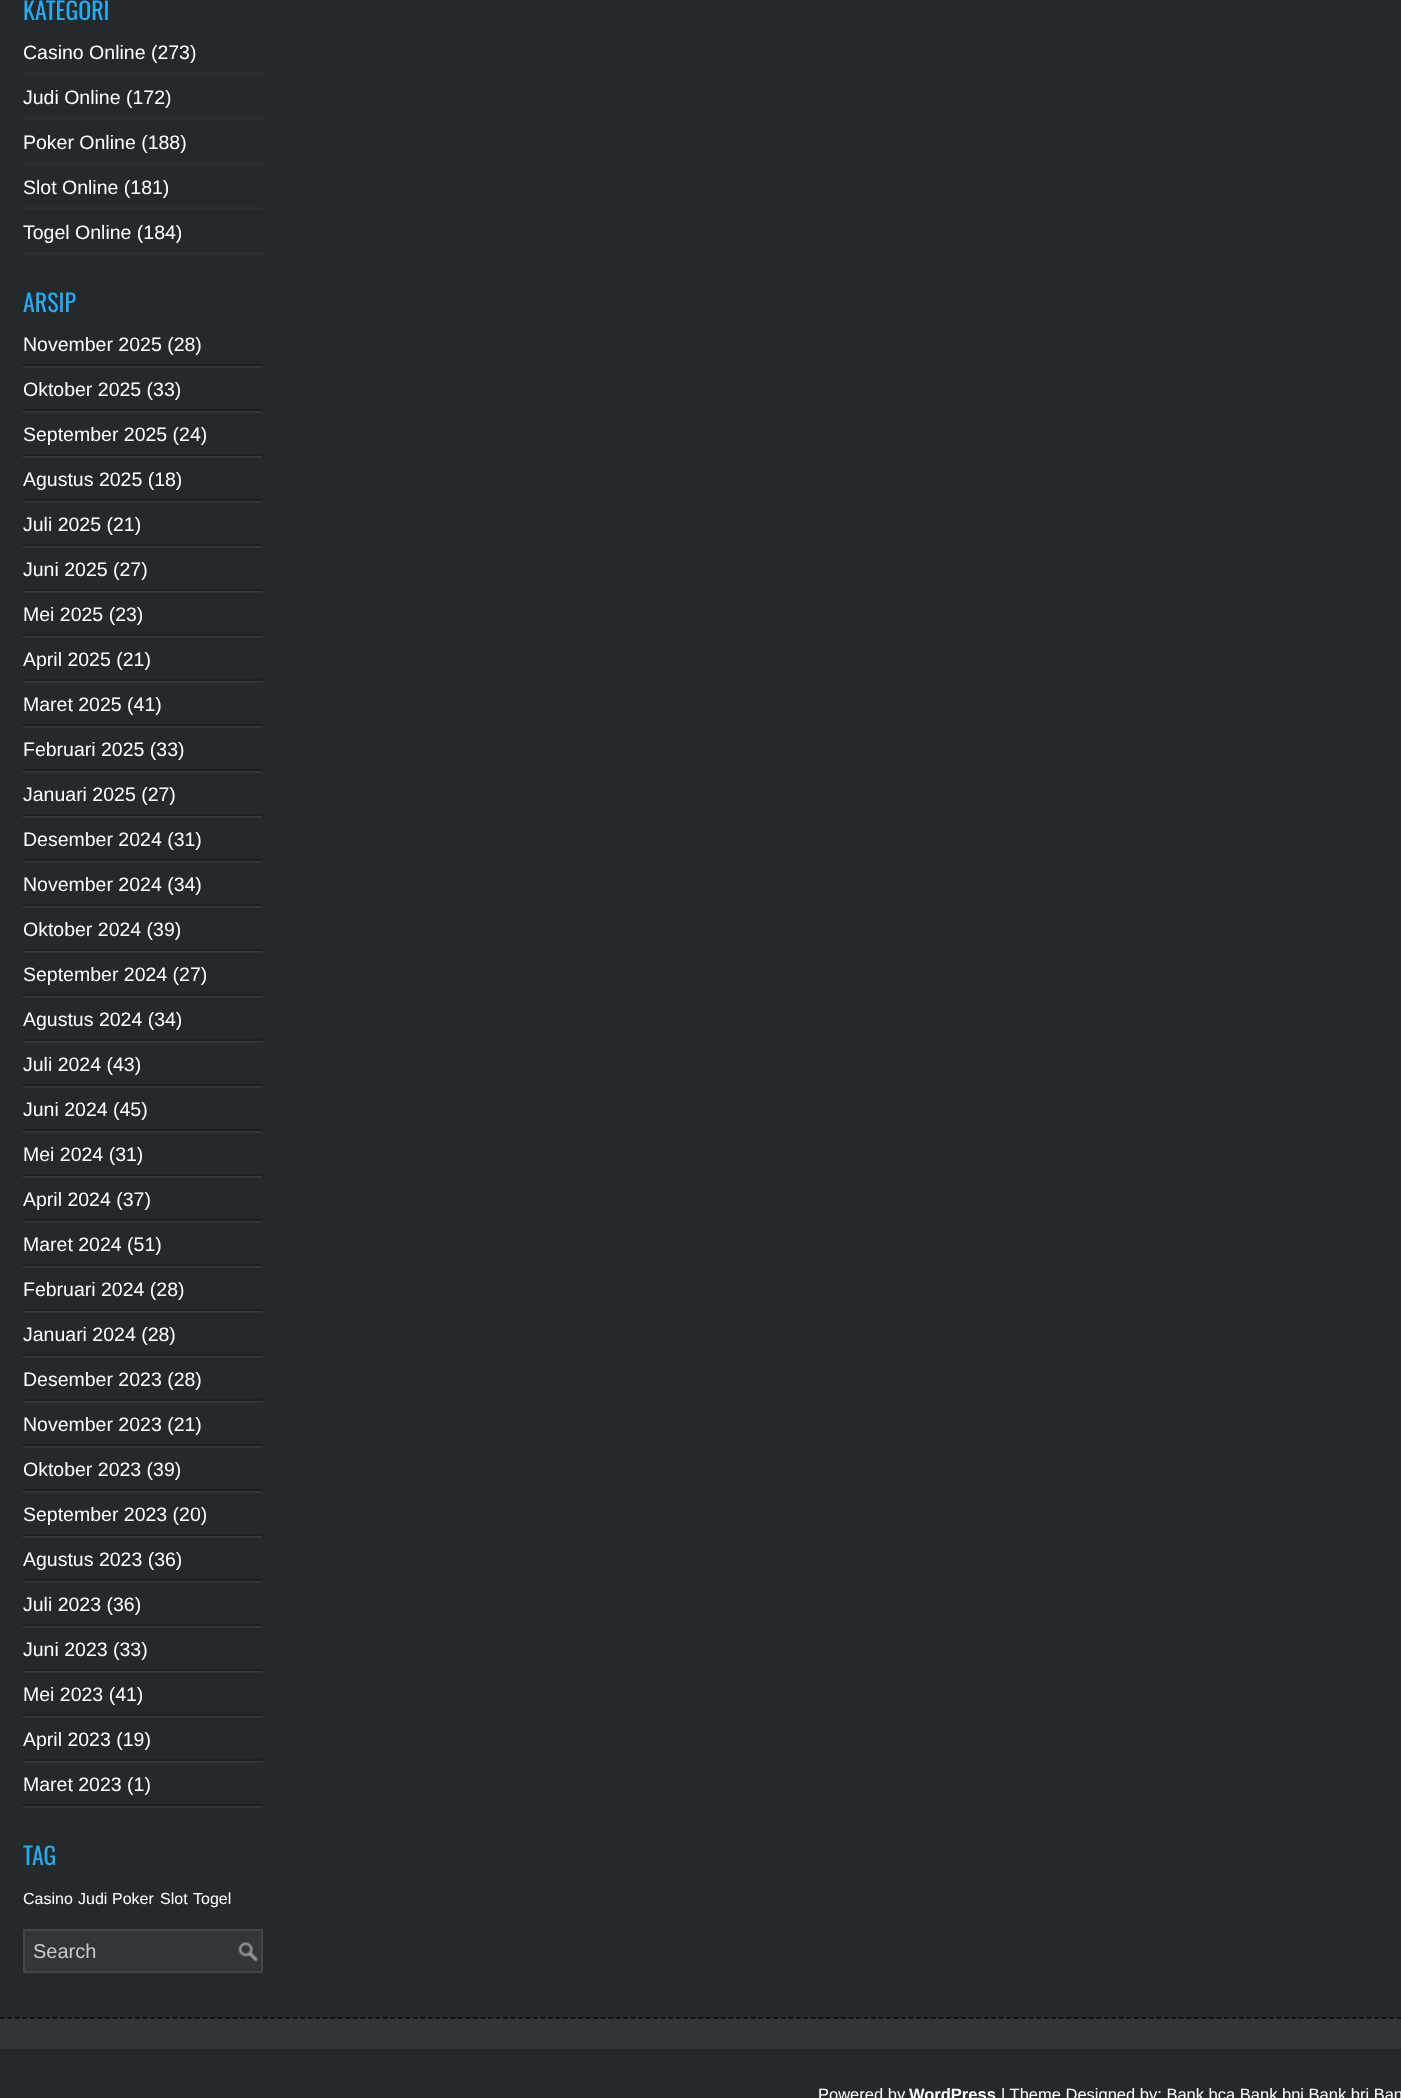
(async () => {
const canvas = document.querySelector("canvas")
canvas.width = 1401
canvas.height = 2098
const c = canvas.getContext("2d")
c.miterLimit = 4
c.fontKerning = "normal"
function T(s,x,y){c.fillText(s,x,y)}
function R(x,y,w,h){c.fillRect(x,y,w,h)}
async function I(src,x,y,w,h){const img=new Image();img.src=src;await img.decode();c.drawImage(img,x,y,w,h)}
let path
c.fillStyle="#24292c"
R(0,0,1401,2098)
c.font="24px Oswald"
c.fillStyle="#29aaf0"
T("KATEGORI",23,20)
c.fillStyle="#2b2e2f"
R(22,72,241,3)
c.font="19.5px Liberation Sans"
c.fillStyle="#fff"
T("Casino Online (273)",23,59)
c.fillStyle="#2b2e2f"
R(22,117,241,3)
c.fillStyle="#fff"
T("Judi Online (172)",23,104)
c.fillStyle="#2b2e2f"
R(22,162,241,3)
c.fillStyle="#fff"
T("Poker Online (188)",23,149)
c.fillStyle="#2b2e2f"
R(22,207,241,3)
c.fillStyle="#fff"
T("Slot Online (181)",23,194)
c.fillStyle="#2b2e2f"
R(22,252,241,3)
c.fillStyle="#fff"
T("Togel Online (184)",23,239)
c.font="24px Oswald"
c.fillStyle="#29aaf0"
T("ARSIP",23,312)
await I("1.png",22,364,241,4)
c.font="19.5px Liberation Sans"
c.fillStyle="#fff"
T("November 2025 (28)",23,351)
await I("1.png",22,409,241,4)
T("Oktober 2025 (33)",23,396)
await I("1.png",22,454,241,4)
T("September 2025 (24)",23,441)
await I("1.png",22,499,241,4)
T("Agustus 2025 (18)",23,486)
await I("1.png",22,544,241,4)
T("Juli 2025 (21)",23,531)
await I("1.png",22,589,241,4)
T("Juni 2025 (27)",23,576)
await I("1.png",22,634,241,4)
T("Mei 2025 (23)",23,621)
await I("1.png",22,679,241,4)
T("April 2025 (21)",23,666)
await I("1.png",22,724,241,4)
T("Maret 2025 (41)",23,711)
await I("1.png",22,769,241,4)
T("Februari 2025 (33)",23,756)
await I("1.png",22,814,241,4)
T("Januari 2025 (27)",23,801)
await I("1.png",22,859,241,4)
T("Desember 2024 (31)",23,846)
await I("1.png",22,904,241,4)
T("November 2024 (34)",23,891)
await I("1.png",22,949,241,4)
T("Oktober 2024 (39)",23,936)
await I("1.png",22,994,241,4)
T("September 2024 (27)",23,981)
await I("1.png",22,1039,241,4)
T("Agustus 2024 (34)",23,1026)
await I("1.png",22,1084,241,4)
T("Juli 2024 (43)",23,1071)
await I("1.png",22,1129,241,4)
T("Juni 2024 (45)",23,1116)
await I("1.png",22,1174,241,4)
T("Mei 2024 (31)",23,1161)
await I("1.png",22,1219,241,4)
T("April 2024 (37)",23,1206)
await I("1.png",22,1264,241,4)
T("Maret 2024 (51)",23,1251)
await I("1.png",22,1309,241,4)
T("Februari 2024 (28)",23,1296)
await I("1.png",22,1354,241,4)
T("Januari 2024 (28)",23,1341)
await I("1.png",22,1399,241,4)
T("Desember 2023 (28)",23,1386)
await I("1.png",22,1444,241,4)
T("November 2023 (21)",23,1431)
await I("1.png",22,1489,241,4)
T("Oktober 2023 (39)",23,1476)
await I("1.png",22,1534,241,4)
T("September 2023 (20)",23,1521)
await I("1.png",22,1579,241,4)
T("Agustus 2023 (36)",23,1566)
await I("1.png",22,1624,241,4)
T("Juli 2023 (36)",23,1611)
await I("1.png",22,1669,241,4)
T("Juni 2023 (33)",23,1656)
await I("1.png",22,1714,241,4)
T("Mei 2023 (41)",23,1701)
await I("1.png",22,1759,241,4)
T("April 2023 (19)",23,1746)
await I("1.png",22,1804,241,4)
T("Maret 2023 (1)",23,1791)
c.save()
c.beginPath()
c.rect(23,0,240,1995)
c.clip()
c.font="24px Oswald"
c.fillStyle="#29aaf0"
T("TAG",23,1865)
c.restore()
c.font="16px Liberation Sans"
T("Casino",23,1904)
T("Judi",78,1904)
T("Poker",112,1904)
T("Slot",160,1904)
T("Togel",193,1904)
c.fillStyle="#313638"
R(25,1931,236,40)
await I("2.png",238,1942,21,21)
c.strokeStyle="#424749"
c.lineWidth=2
c.strokeRect(24,1930,238,42)
c.font="20px Liberation Sans"
c.fillStyle="#cacaca"
T("Search",33,1958)
c.fillStyle="#303538"
R(0,2018,1401,31)
path = new Path2D("M0 2018h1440")
c.strokeStyle="#040f0b"
c.lineWidth=1.5
c.setLineDash([4.5,3.01])
c.stroke(path)
c.font="16.5px Liberation Sans"
c.fillStyle="#fff"
T("Powered by",818,2100)
c.font="bold 16.5px Liberation Sans"
T("WordPress",909,2100)
c.font="16.5px Liberation Sans"
T("| Theme Designed by: Bank bca Bank bni Bank bri Ban",1001,2100)
})()
